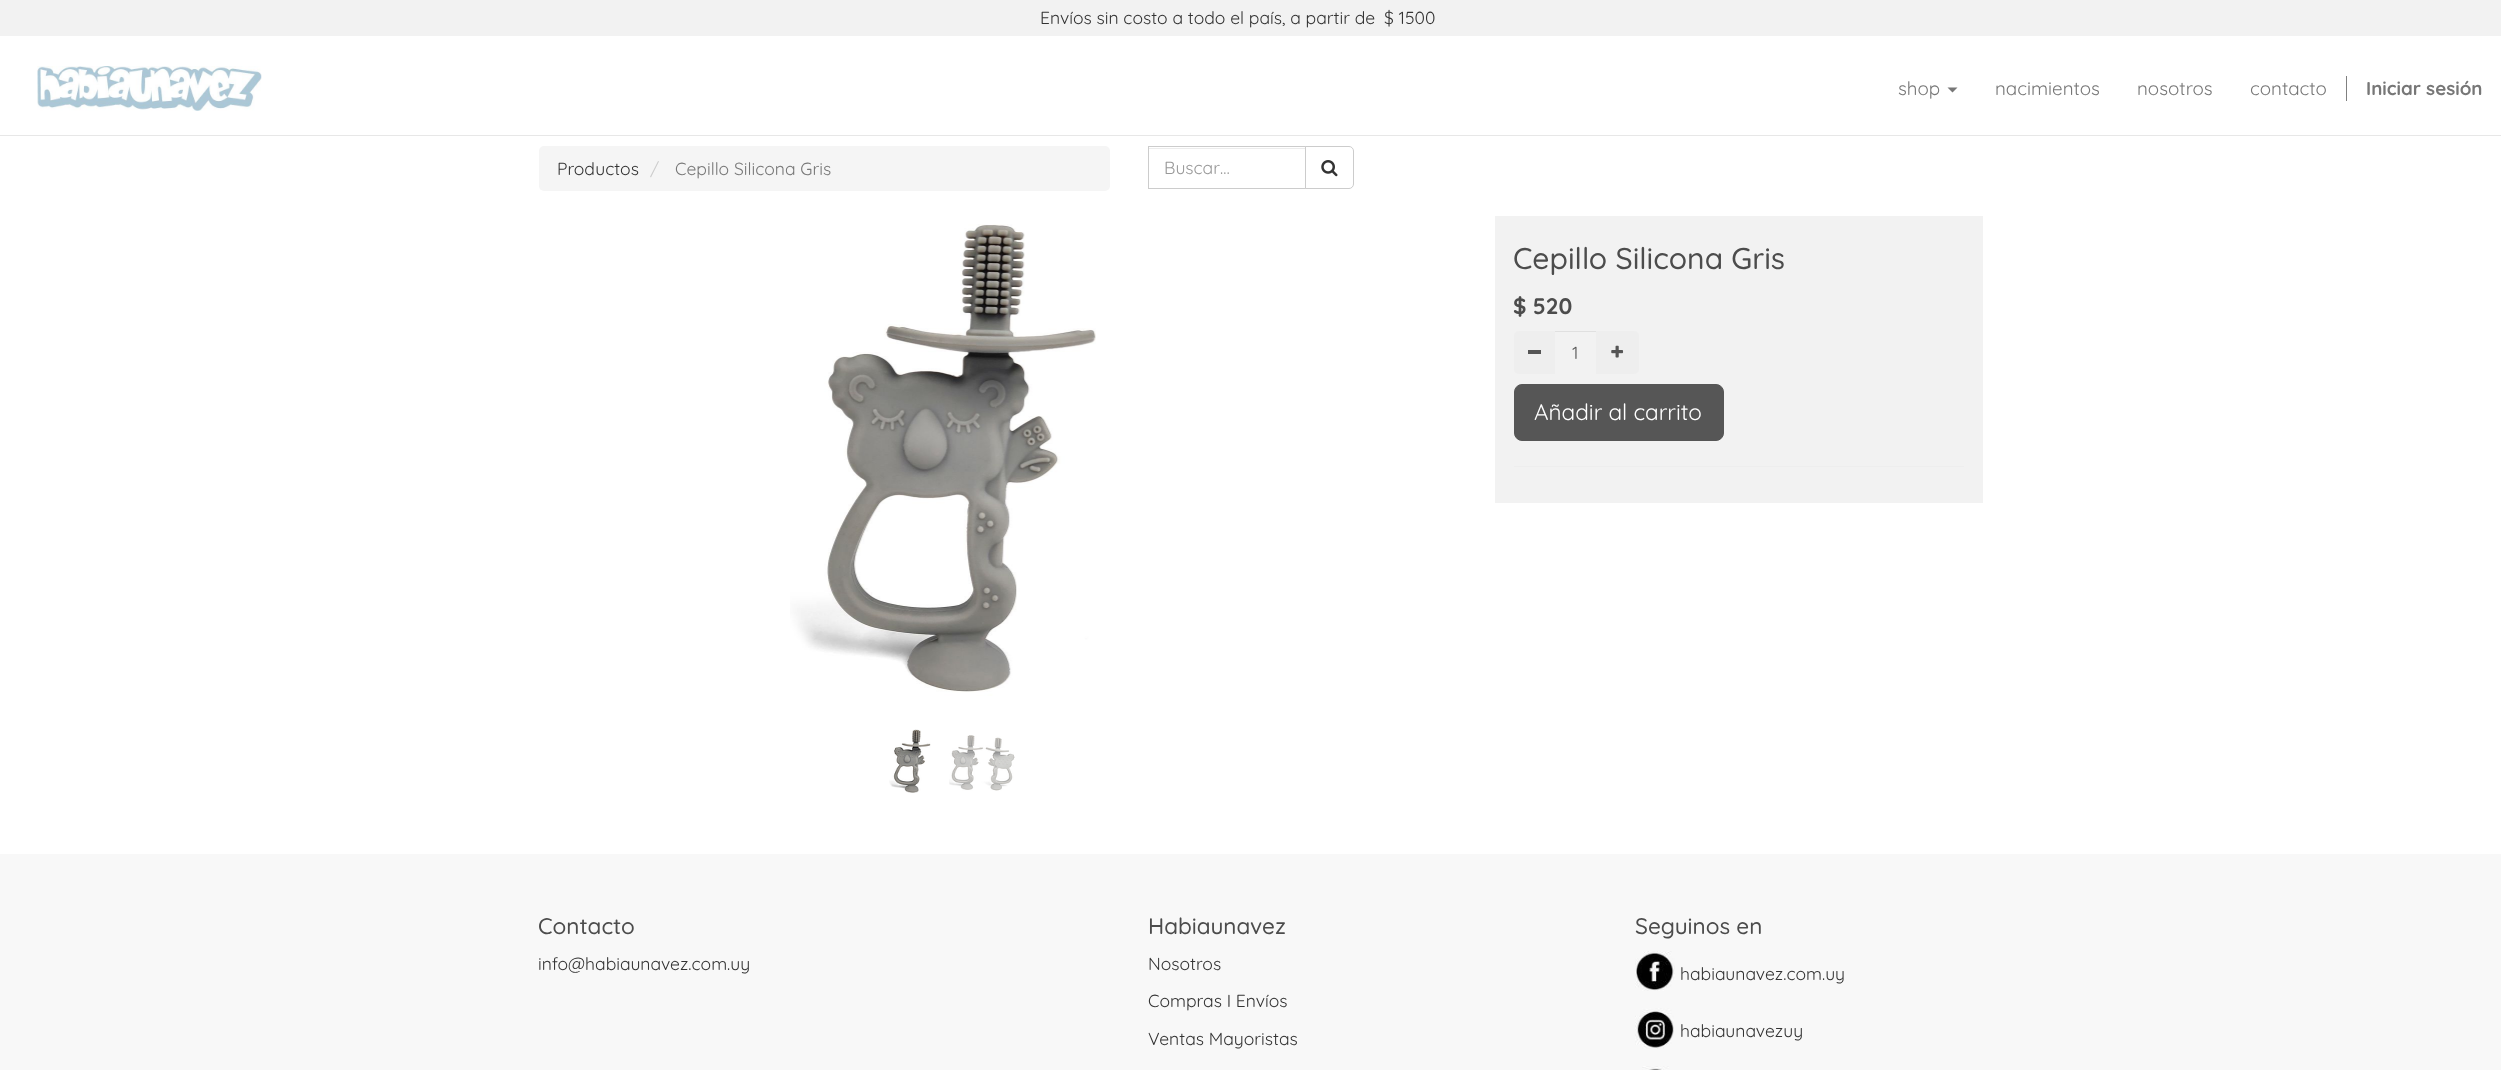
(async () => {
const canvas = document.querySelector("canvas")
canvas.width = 2501
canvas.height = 1070
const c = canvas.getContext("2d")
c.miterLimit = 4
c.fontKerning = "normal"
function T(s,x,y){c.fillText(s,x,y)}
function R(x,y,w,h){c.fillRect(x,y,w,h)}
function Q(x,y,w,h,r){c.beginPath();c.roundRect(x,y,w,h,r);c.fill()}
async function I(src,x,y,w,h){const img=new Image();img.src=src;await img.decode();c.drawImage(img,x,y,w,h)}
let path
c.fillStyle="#fff"
R(0,0,2501,1070)
c.fillStyle="#f2f2f2"
R(0,0,2501,36)
c.font="17.5px Quicksand"
c.fillStyle="#333"
T("Envíos sin costo a todo el país, a partir de",1040,24)
T("$ 1500",1384,24)
c.fillStyle="#e7e7e7"
R(0,135,2501,1)
await I("1.png",37,66,225,45)
c.font="18.75px Quicksand"
c.fillStyle="#777"
T("shop",1898,95)
path = new Path2D("M1947.5 87.5h10l-5 5z")
c.fill(path)
T("nacimientos",1995,95)
T("nosotros",2137,95)
T("contacto",2250,95)
c.fillStyle="#808080"
R(2346,76,1,25)
c.font="bold 18.75px Quicksand"
c.fillStyle="#777"
T("Iniciar sesión",2366,95)
c.fillStyle="#f5f5f5"
Q(539,146,571,45,5)
c.font="17.5px Quicksand"
c.fillStyle="#333"
T("Productos",557,175)
c.fillStyle="#ccc"
T("/",650,175)
c.fillStyle="#777"
T("Cepillo Silicona Gris",675,175)
c.fillStyle="#ececec"
R(1149,148,156,1)
c.strokeStyle="#ccc"
c.strokeRect(1148.5,146.5,157,42)
c.fillStyle="#999"
T("Buscar…",1164,174)
c.fillStyle="#fff"
c.beginPath()
c.roundRect(1305.5,146.5,48,42,[0,4.5,4.5,0])
c.fill()
c.stroke()
await I("2.png",1321,160,17,17)
await I("3.png",790,224,306,472)
await I("4.png",889,729,42,64)
await I("5.png",949,735,66,56)
c.fillStyle="#f2f2f2"
R(1495,216,488,287)
c.font="500 30px Quicksand"
c.fillStyle="#4c4c4c"
T("Cepillo Silicona Gris",1513,269)
c.font="bold 22.5px Quicksand"
T("$ 520",1513,314)
c.fillStyle="#eee"
c.beginPath()
c.roundRect(1514,331,41,43,[5,0,0,5])
c.fill()
c.fillStyle="#555"
R(1528,350,13,4)
c.fillStyle="#e0e0e0"
R(1555,331,41,1)
c.font="17.5px Quicksand"
c.fillStyle="#555"
T("1",1572,359)
c.fillStyle="#eee"
c.beginPath()
c.roundRect(1596,331,43,43,[0,5,5,0])
c.fill()
await I("6.png",1611,345,13,13)
c.fillStyle="#565656"
c.beginPath()
c.roundRect(1514.5,384.5,209,56,7.5)
c.fill()
c.strokeStyle="#565656"
c.stroke()
c.font="22.5px Quicksand"
c.fillStyle="#fff"
T("Añadir al carrito",1534,420)
c.fillStyle="#eee"
R(1514,466,450,1)
c.fillStyle="#f8f8f8"
R(0,854,2501,216)
c.font="500 22.5px Quicksand"
c.fillStyle="#4c4c4c"
T("Contacto",538,934)
c.font="17.5px Quicksand"
c.fillStyle="#333"
T("info@habiaunavez.com.uy",538,970)
c.font="500 22.5px Quicksand"
c.fillStyle="#4c4c4c"
T("Habiaunavez",1148,934)
c.font="17.5px Quicksand"
c.fillStyle="#333"
T("Nosotros",1148,970)
T("Compras I Envíos",1148,1007)
T("Ventas Mayoristas",1148,1045)
c.font="500 22.5px Quicksand"
c.fillStyle="#4c4c4c"
T("Seguinos en",1635,934)
await I("7.png",1635,951,40,40)
c.font="17.5px Quicksand"
c.fillStyle="#333"
T("habiaunavez.com.uy",1680,980)
await I("8.png",1635,1008,39,41)
T("habiaunavezuy",1680,1037)
await I("9.png",1642,1066,27,4)
})()
